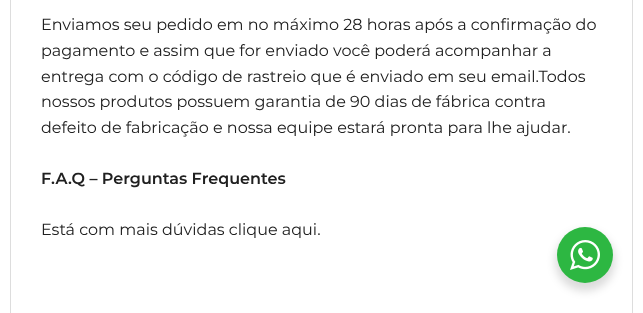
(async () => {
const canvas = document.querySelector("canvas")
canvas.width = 643
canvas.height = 313
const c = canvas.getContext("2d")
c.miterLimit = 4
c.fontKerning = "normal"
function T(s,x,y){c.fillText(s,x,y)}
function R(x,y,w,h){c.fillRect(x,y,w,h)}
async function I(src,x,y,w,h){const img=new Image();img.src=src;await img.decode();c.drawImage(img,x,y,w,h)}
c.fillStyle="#fff"
R(0,0,643,313)
c.strokeStyle="#ddd"
c.strokeRect(10.5,-.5,622,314)
c.font="16px Montserrat"
c.fillStyle="#202020"
T("Enviamos seu pedido em no máximo 28 horas após a confirmação do",41,30)
T("pagamento e assim que for enviado você poderá acompanhar a",41,56)
T("entrega com o código de rastreio que é enviado em seu email.Todos",41,82)
T("nossos produtos possuem garantia de 90 dias de fábrica contra",41,107)
T("defeito de fabricação e nossa equipe estará pronta para lhe ajudar.",41,133)
c.font="600 16px Montserrat"
T("F.A.Q – Perguntas Frequentes",41,184)
c.font="16px Montserrat"
T("Está com mais dúvidas clique aqui.",41,235)
c.fillStyle="#00000024"
c.filter="blur(4px)"
c.beginPath()
c.roundRect(555,231,60,60,30)
c.fill()
c.filter="none"
c.fillStyle="#2db742"
c.beginPath()
c.arc(585,255,28,0,7)
c.fill()
await I("1.png",570,240,30,30)
})()
